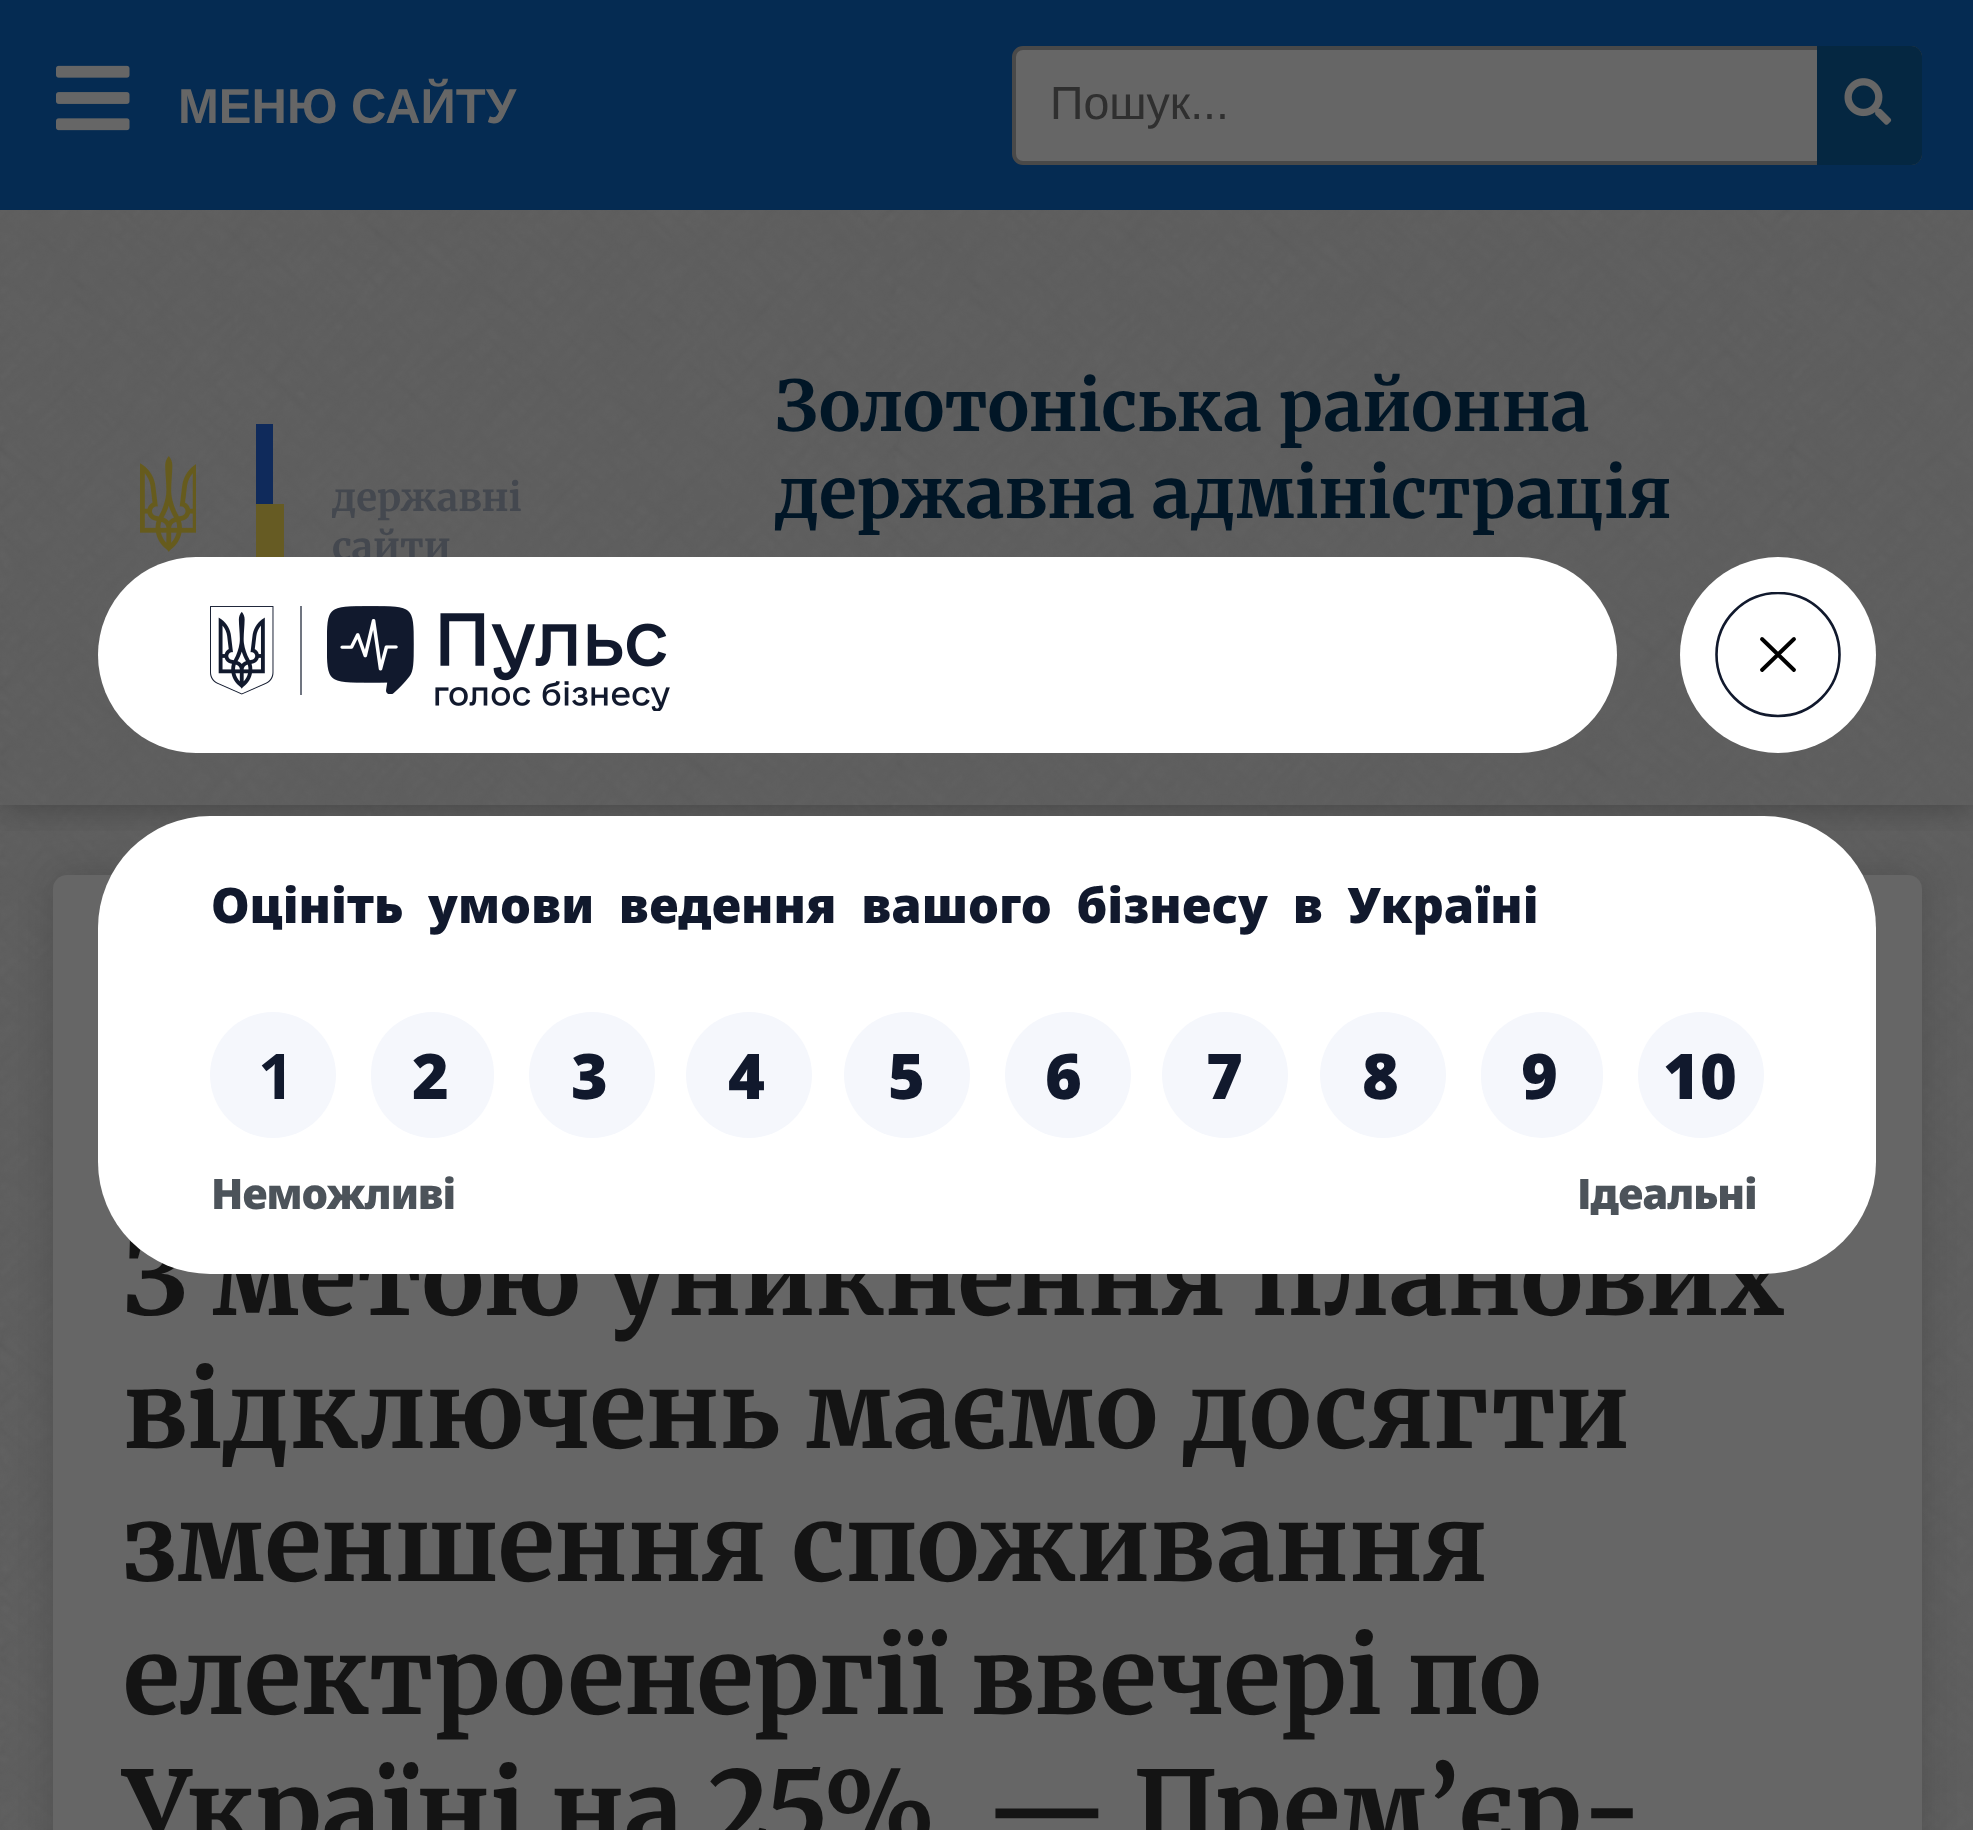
(async () => {
const canvas = document.querySelector("canvas")
canvas.width = 1973
canvas.height = 1830
const c = canvas.getContext("2d")
c.miterLimit = 4
c.fontKerning = "normal"
function T(s,x,y){c.fillText(s,x,y)}
function R(x,y,w,h){c.fillRect(x,y,w,h)}
function Q(x,y,w,h,r){c.beginPath();c.roundRect(x,y,w,h,r);c.fill()}
async function I(src,x,y,w,h){const img=new Image();img.src=src;await img.decode();c.drawImage(img,x,y,w,h)}
let path
c.fillStyle="#666"
R(0,0,1973,1830)
await I("1.png",0,210,1973,1620)
c.fillStyle="#00000026"
c.filter="blur(17.5px)"
c.beginPath()
c.roundRect(53,875,1869,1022,14)
c.fill()
c.filter="none"
c.fillStyle="#666"
Q(53,875,1869,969,14)
c.save()
c.beginPath()
c.rect(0,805,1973,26)
c.clip()
c.fillStyle="#0000004d"
c.filter="blur(17.5px)"
c.beginPath()
c.rect(0,210,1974,595)
c.fill()
c.filter="none"
c.restore()
c.fillStyle="#052b52"
R(0,0,1973,210)
await I("2.png",56,65,74,66)
c.font="bold 49px Liberation Sans"
c.fillStyle="#666"
T("МЕНЮ САЙТУ",178,123)
c.font="300 105px Merriweather"
c.fillStyle="#141414"
T("З метою уникнення планових",123,1315)
T("відключень маємо досягти",123,1448)
T("зменшення споживання",123,1581)
T("електроенергії ввечері по",123,1714)
T("Україні на 25%, — Прем’єр-",123,1847)
c.fillStyle="#666"
c.beginPath()
c.roundRect(1014,48,906,115,9)
c.fill()
c.strokeStyle="#494949"
c.lineWidth=4
c.stroke()
c.font="46.5px Liberation Sans"
c.fillStyle="#2f2f2f"
T("Пошук...",1050,119)
c.fillStyle="#052741"
c.beginPath()
c.roundRect(1817,46,105,119,[0,11,11,0])
c.fill()
await I("3.png",1844,78,48,47)
await I("4.png",140,456,56,96)
c.fillStyle="#0f2a5b"
R(256,424,17,80)
c.fillStyle="#665b23"
R(256,504,28,53)
c.font="300 38.5px Merriweather"
c.fillStyle="#44484f"
T("державні",332,511)
T("сайти",332,560)
c.font="300 70px Merriweather"
c.fillStyle="#011626"
T("Золотоніська районна",775,431)
T("державна адміністрація",775,518)
c.fillStyle="#fff"
Q(98,557,1519,196,98)
await I("5.png",210,606,460,105)
c.beginPath()
c.arc(1778,655,98,0,7)
c.fill()
c.save()
c.beginPath()
c.rect(1715,592,126,126)
c.clip()
path = new Path2D("M1778 593c34 0 61.5 27.5 61.5 61.5c0 34-27.5 61.5-61.5 61.5c-34 0-61.5-27.5-61.5-61.5c0-34 27.5-61.5 61.5-61.5z")
c.strokeStyle="#11192d"
c.lineWidth=2.6
c.stroke(path)
c.restore()
path = new Path2D("M1794 639l-32 31m0-31l32 31")
c.strokeStyle="#000"
c.lineWidth=3.9
c.lineCap="round"
c.lineJoin="round"
c.stroke(path)
Q(98,816,1778,458,112)
c.wordSpacing="12px"
c.font="900 49px Noto Sans"
c.fillStyle="#11192d"
T("Оцініть умови ведення вашого бізнесу в Україні",211,923)
c.fillStyle="#f5f7fc"
c.beginPath()
c.arc(273,1075,63,0,7)
c.fill()
c.wordSpacing="0px"
c.font="bold 63px Noto Sans"
c.fillStyle="#11192d"
T("1",258,1099)
c.fillStyle="#f5f7fc"
Q(371,1012,123,126,61.5)
c.font="900 63px Noto Sans"
c.fillStyle="#11192d"
T("2",412,1099)
c.fillStyle="#f5f7fc"
c.beginPath()
c.arc(592,1075,63,0,7)
c.fill()
c.fillStyle="#11192d"
T("3",571,1099)
c.fillStyle="#f5f7fc"
c.beginPath()
c.arc(749,1075,63,0,7)
c.fill()
c.fillStyle="#11192d"
T("4",728,1099)
c.fillStyle="#f5f7fc"
c.beginPath()
c.arc(907,1075,63,0,7)
c.fill()
c.fillStyle="#11192d"
T("5",888,1099)
c.fillStyle="#f5f7fc"
c.beginPath()
c.arc(1068,1075,63,0,7)
c.fill()
c.fillStyle="#11192d"
T("6",1045,1099)
c.fillStyle="#f5f7fc"
c.beginPath()
c.arc(1225,1075,63,0,7)
c.fill()
c.fillStyle="#11192d"
T("7",1206,1099)
c.fillStyle="#f5f7fc"
c.beginPath()
c.arc(1383,1075,63,0,7)
c.fill()
c.fillStyle="#11192d"
T("8",1362,1099)
c.fillStyle="#f5f7fc"
Q(1481,1012,122,126,61)
c.fillStyle="#11192d"
T("9",1521,1099)
c.fillStyle="#f5f7fc"
c.beginPath()
c.arc(1701,1075,63,0,7)
c.fill()
c.fillStyle="#11192d"
T("10",1663,1099)
c.letterSpacing="-1.1px"
c.font="900 42px Noto Sans"
c.fillStyle="#4c535a"
T("Неможливі",211,1209)
T("Ідеальні",1577,1209)
})()
